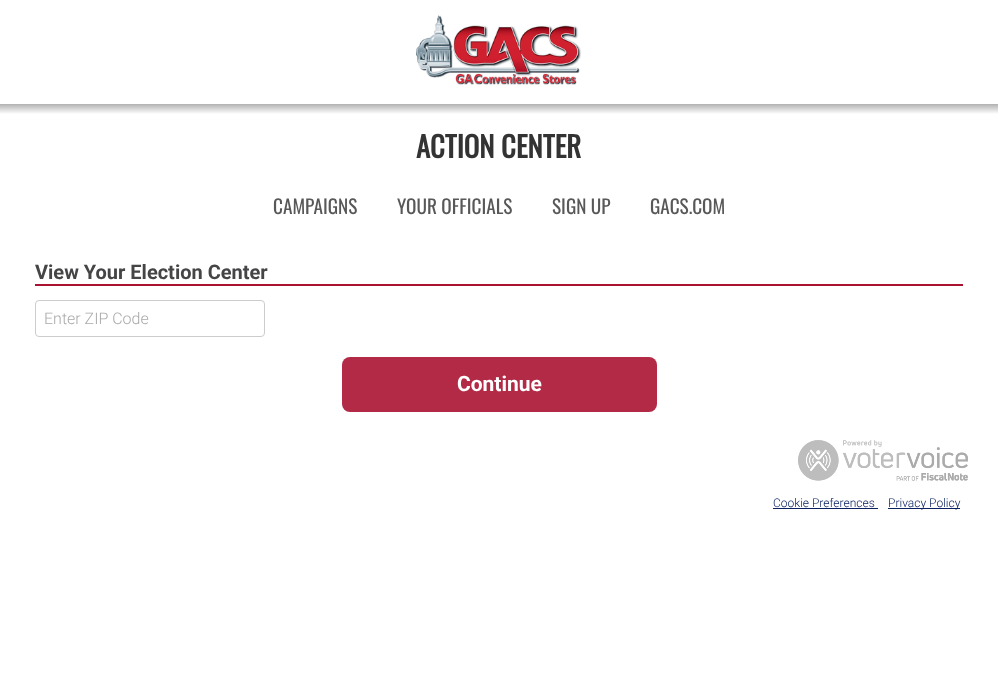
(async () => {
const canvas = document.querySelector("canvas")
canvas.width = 998
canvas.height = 684
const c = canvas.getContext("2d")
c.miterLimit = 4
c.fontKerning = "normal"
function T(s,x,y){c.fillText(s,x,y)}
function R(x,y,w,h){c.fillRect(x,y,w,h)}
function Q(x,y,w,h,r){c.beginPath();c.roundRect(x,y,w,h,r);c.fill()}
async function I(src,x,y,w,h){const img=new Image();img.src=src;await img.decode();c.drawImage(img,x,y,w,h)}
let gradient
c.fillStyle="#fff"
R(0,0,998,684)
await I("1.png",416,15,165,70)
gradient = c.createLinearGradient(499,104,499,114)
gradient.addColorStop(0,"#b1b1b1")
gradient.addColorStop(1,"#fff")
c.fillStyle = gradient
R(0,104,998,10)
c.font="bold 28.75px Oswald"
c.fillStyle="#333"
T("ACTION CENTER",416,158)
c.font="19.25px Oswald"
c.fillStyle="#585858"
T("CAMPAIGNS",273,214)
T("YOUR OFFICIALS",397,214)
T("SIGN UP",552,214)
T("GACS.COM",650,214)
c.fillStyle="#a91231"
R(35,284,928,2)
c.font="bold 20px Roboto"
c.fillStyle="#454446"
T("View Your Election Center",35,279)
c.beginPath()
c.roundRect(35.5,300.5,229,36,3.5)
c.strokeStyle="#ccc"
c.stroke()
c.font="300 16px Roboto"
c.fillStyle="#a9a9a9"
T("Enter ZIP Code",44,324)
c.fillStyle="#b22a46"
Q(342,357,315,55,8)
c.font="bold 21px Roboto"
c.fillStyle="#fff"
T("Continue",457,391)
await I("2.png",798,440,170,41)
c.font="300 12px Roboto"
c.fillStyle="#0b2161"
T("Cookie Preferences",773,507)
R(773,508,105,1)
R(888,508,72,1)
T("Privacy Policy",888,507)
})()
